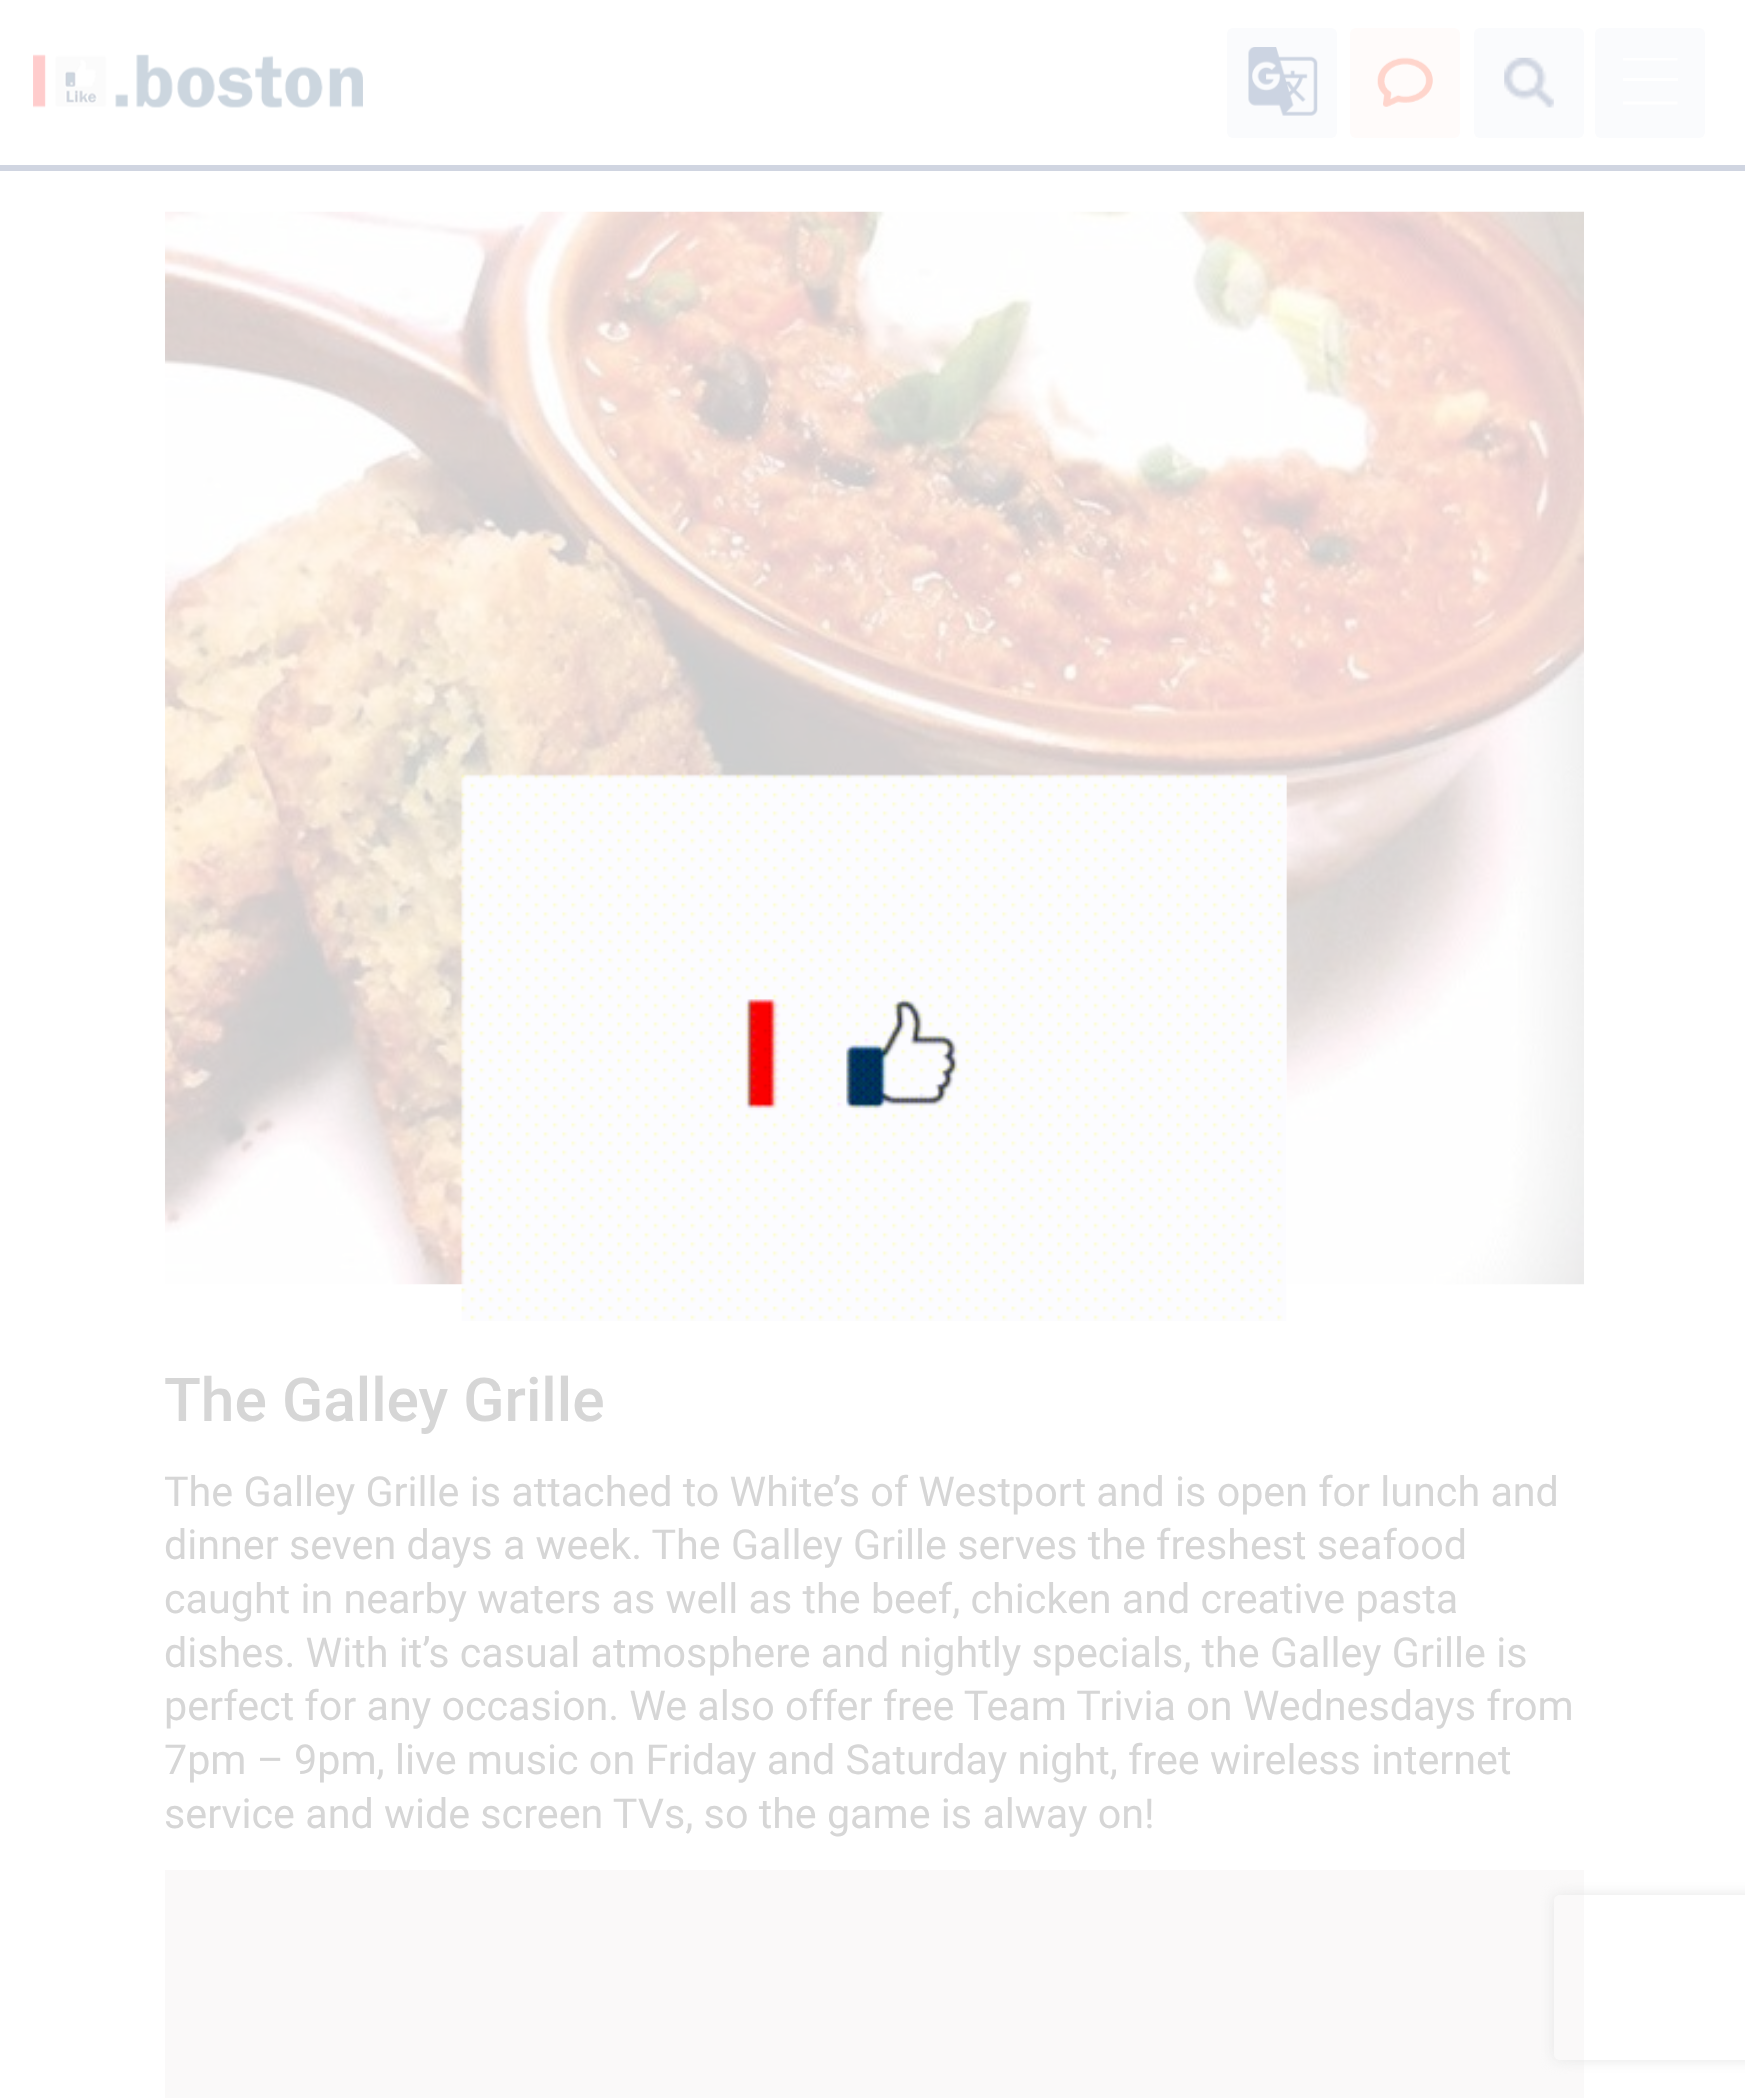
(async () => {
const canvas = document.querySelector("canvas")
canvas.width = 1745
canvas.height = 2098
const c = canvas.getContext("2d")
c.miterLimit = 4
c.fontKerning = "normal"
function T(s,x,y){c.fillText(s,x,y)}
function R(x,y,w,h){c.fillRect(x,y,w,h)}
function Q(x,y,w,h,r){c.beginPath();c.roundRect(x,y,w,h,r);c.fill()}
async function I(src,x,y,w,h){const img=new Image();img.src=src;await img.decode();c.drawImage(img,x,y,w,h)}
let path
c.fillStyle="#fff"
R(0,0,1745,2098)
c.fillStyle="#d0d5e1"
R(0,165,1745,6)
await I("1.png",33,54,330,54)
c.fillStyle="#fafbfd"
Q(1227,28,110,110,6)
await I("2.png",1248,47,70,69)
c.fillStyle="#fffbfa"
Q(1350,28,110,110,6)
await I("3.png",1377,57,56,50)
c.fillStyle="#fafbfd"
Q(1474,28,110,110,6)
await I("4.png",1504,57,50,51)
Q(1595,28,110,110,6)
c.save()
c.beginPath()
c.rect(1623,58,55,47)
c.clip()
path = new Path2D("M1622.5 59h55")
c.strokeStyle="#fff"
c.lineWidth=2.8
c.stroke(path)
c.restore()
c.fillStyle="#fff"
R(1623,78,55,3)
c.save()
c.beginPath()
c.rect(1623,58,55,47)
c.clip()
path = new Path2D("M1622.5 103h55")
c.strokeStyle="#fff"
c.lineWidth=2.8
c.stroke(path)
c.restore()
await I("6.png",165,211,1419,1074)
await I("5.png",461,774,826,547)
c.font="500 60.5px Roboto"
c.fillStyle="#d6d6d6"
T("The Galley Grille",164,1421)
c.font="41.25px Roboto"
T("The Galley Grille is attached to White’s of Westport and is open for lunch and",164,1506)
T("dinner seven days a week. The Galley Grille serves the freshest seafood",164,1559)
T("caught in nearby waters as well as the beef, chicken and creative pasta",164,1613)
T("dishes. With it’s casual atmosphere and nightly specials, the Galley Grille is",164,1667)
T("perfect for any occasion. We also offer free Team Trivia on Wednesdays from",164,1720)
T("7pm – 9pm, live music on Friday and Saturday night, free wireless internet",164,1774)
T("service and wide screen TVs, so the game is alway on!",164,1828)
c.fillStyle="#faf9f9"
R(165,1870,1419,228)
c.save()
path = new Path2D("M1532 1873h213v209h-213zm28 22h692c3.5 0 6 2.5 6 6v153c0 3.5-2.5 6-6 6h-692c-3.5 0-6-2.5-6-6v-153c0-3.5 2.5-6 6-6z")
c.clip(path,"evenodd")
c.fillStyle="#e6e6e6"
c.filter="blur(7px)"
c.beginPath()
c.roundRect(1554,1895,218,165,6)
c.fill()
c.filter="none"
c.restore()
})()
